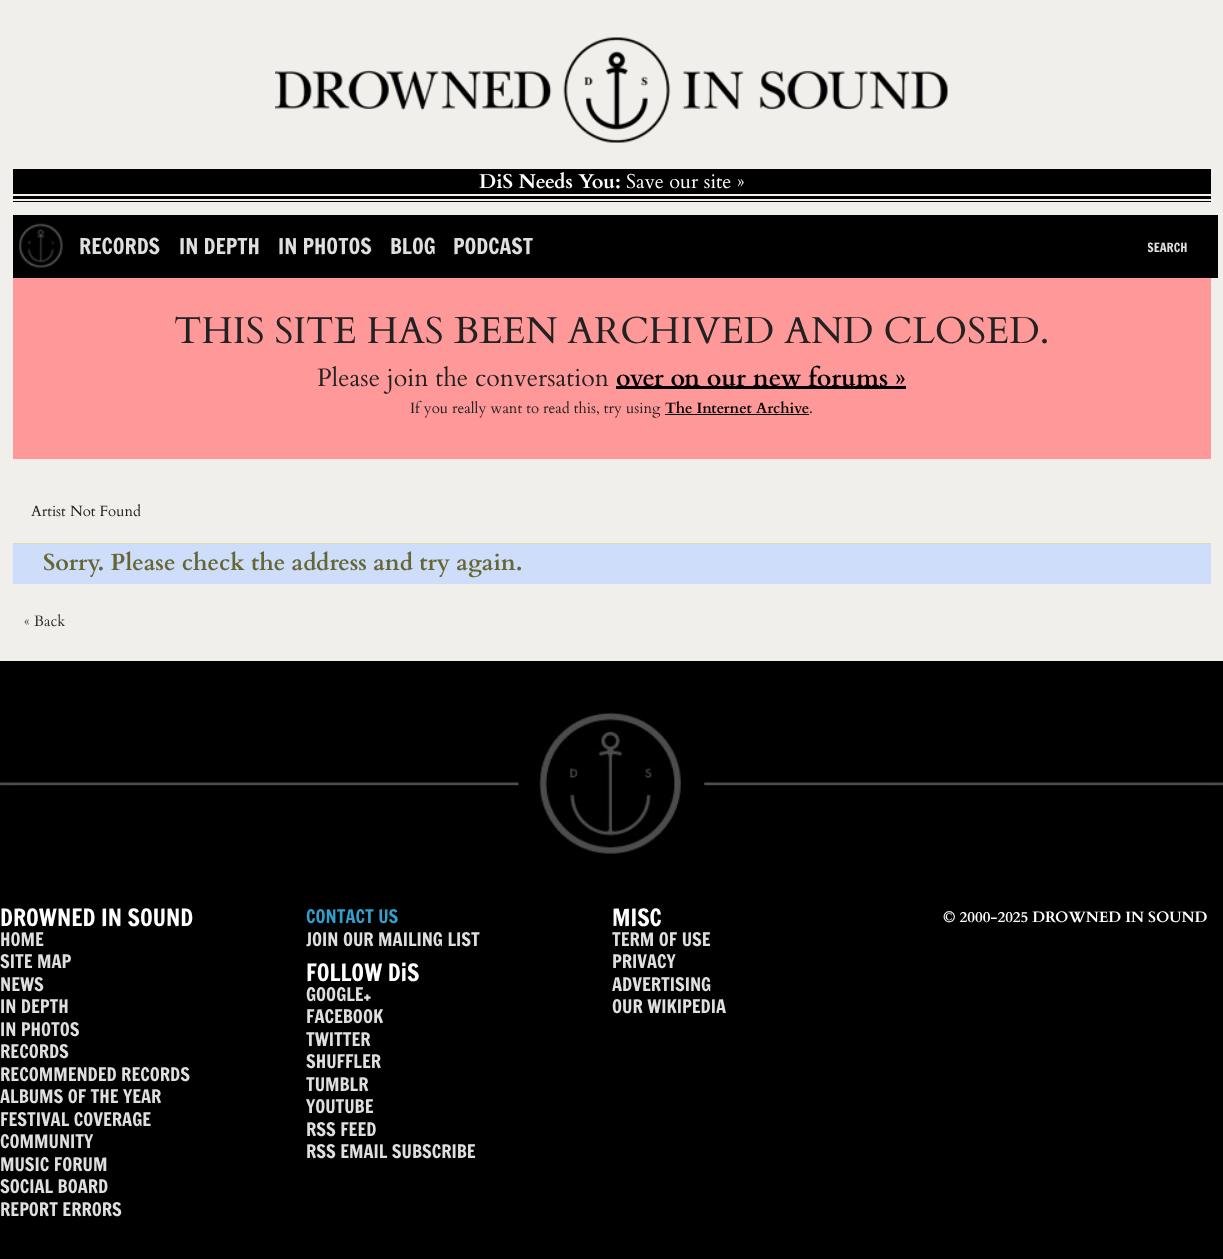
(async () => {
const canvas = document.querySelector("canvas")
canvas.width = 1223
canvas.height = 1259
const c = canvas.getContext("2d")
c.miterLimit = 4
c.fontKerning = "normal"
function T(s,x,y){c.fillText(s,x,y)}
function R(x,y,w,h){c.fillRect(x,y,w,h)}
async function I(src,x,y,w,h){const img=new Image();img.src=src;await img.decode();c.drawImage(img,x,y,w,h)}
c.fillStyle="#f0efeb"
R(0,0,1223,1259)
c.fillStyle="#000"
R(13,201,1198,1)
await I("1.png",275,37,673,106)
R(13,169,1198,25)
c.font="bold 20px Cardo"
c.fillStyle="#fff"
T("DiS Needs You:",479,188)
c.font="20px Cardo"
T("Save our site »",626,188)
c.fillStyle="#000"
R(13,196,1198,3)
R(13,215,1205,63)
await I("2.png",19,223,44,45)
c.font="21.5px Francois One"
c.fillStyle="#e0dfdf"
T("RECORDS",79,254)
T("IN DEPTH",179,254)
T("IN PHOTOS",278,254)
T("BLOG",390,254)
T("PODCAST",453,254)
c.save()
c.beginPath()
c.rect(1148,215,70,63)
c.clip()
c.font="12.5px Francois One"
T("SEARCH",1147,252)
c.restore()
c.fillStyle="#f99"
R(13,278,1198,181)
c.font="37.5px Cardo"
c.fillStyle="#222"
T("THIS SITE HAS BEEN ARCHIVED AND CLOSED.",174,343)
c.font="25px Cardo"
T("Please join the conversation",317,386)
c.fillStyle="#000"
R(616,386,290,3)
c.font="bold 25px Cardo"
T("over on our new forums »",616,386)
c.font="15px Cardo"
c.fillStyle="#222"
T("If you really want to read this, try using",410,413)
c.font="bold 15px Cardo"
c.fillStyle="#000"
T("The Internet Archive",665,413)
R(665,414,144,1)
c.font="15px Cardo"
c.fillStyle="#222"
T(".",809,413)
T("Artist Not Found",31,516)
c.fillStyle="#ceddfa"
R(13,544,1198,40)
await I("3.png",12,544,1,40)
c.fillStyle="#dda"
R(13,543,1198,1)
c.font="bold 23.3px Cardo"
c.fillStyle="#663"
T("Sorry. Please check the address and try again.",43,570)
c.font="15px Cardo"
c.fillStyle="#333"
T("« Back",24,626)
c.fillStyle="#000"
R(0,661,1223,598)
await I("4.png",0,712,1223,142)
c.font="23.3px Francois One"
c.fillStyle="#fff"
T("DROWNED IN SOUND",0,926)
c.font="18.25px Francois One"
c.fillStyle="#e0dfdf"
T("HOME",0,946)
T("SITE MAP",0,968)
T("NEWS",0,991)
T("IN DEPTH",0,1013)
T("IN PHOTOS",0,1036)
T("RECORDS",0,1058)
T("RECOMMENDED RECORDS",0,1081)
T("ALBUMS OF THE YEAR",0,1103)
T("FESTIVAL COVERAGE",0,1126)
T("COMMUNITY",0,1148)
T("MUSIC FORUM",0,1171)
T("SOCIAL BOARD",0,1193)
T("REPORT ERRORS",0,1216)
c.fillStyle="#329ecc"
T("CONTACT US",306,923)
c.fillStyle="#e0dfdf"
T("JOIN OUR MAILING LIST",306,946)
c.font="23.3px Francois One"
c.fillStyle="#fff"
T("FOLLOW DiS",306,981)
c.font="18.25px Francois One"
c.fillStyle="#e0dfdf"
T("GOOGLE+",306,1001)
T("FACEBOOK",306,1023)
T("TWITTER",306,1046)
T("SHUFFLER",306,1068)
T("TUMBLR",306,1091)
T("YOUTUBE",306,1113)
T("RSS FEED",306,1136)
T("RSS EMAIL SUBSCRIBE",306,1158)
c.font="23.3px Francois One"
c.fillStyle="#fff"
T("MISC",612,926)
c.font="18.25px Francois One"
c.fillStyle="#e0dfdf"
T("TERM OF USE",612,946)
T("PRIVACY",612,968)
T("ADVERTISING",612,991)
T("OUR WIKIPEDIA",612,1013)
c.font="bold 15px Cardo"
c.fillStyle="#fff"
T("© 2000-2025 DROWNED IN SOUND",943,922)
})()
